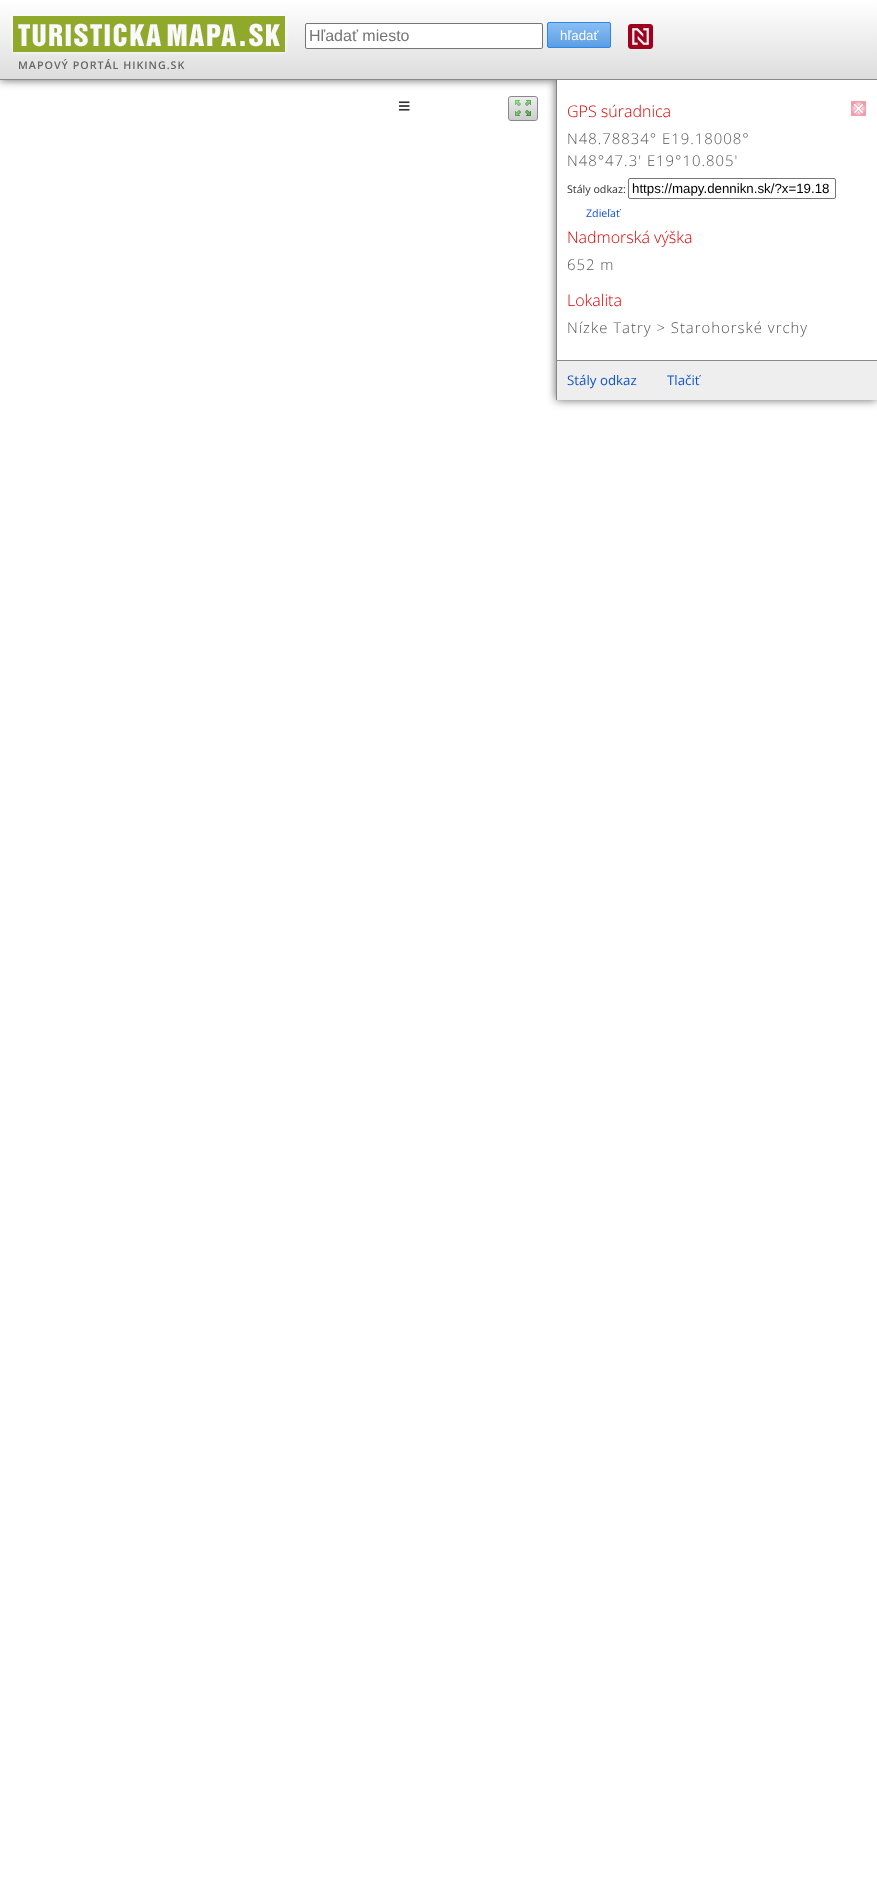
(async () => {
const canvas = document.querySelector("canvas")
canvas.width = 877
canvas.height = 1882
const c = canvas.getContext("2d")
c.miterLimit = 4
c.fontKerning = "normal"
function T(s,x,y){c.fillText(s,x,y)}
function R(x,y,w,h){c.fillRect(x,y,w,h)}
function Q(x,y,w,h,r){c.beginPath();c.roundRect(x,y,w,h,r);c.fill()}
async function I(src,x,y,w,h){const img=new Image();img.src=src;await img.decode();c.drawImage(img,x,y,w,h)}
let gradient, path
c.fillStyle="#fff"
R(0,0,877,1882)
c.save()
path = new Path2D("M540 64h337v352h-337zm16 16h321v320h-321z")
c.clip(path,"evenodd")
c.fillStyle="#666"
c.filter="blur(5px)"
c.beginPath()
c.rect(556,80,321,320)
c.fill()
c.filter="none"
c.restore()
c.fillStyle="#888"
R(556,80,1,320)
c.fillStyle="#666"
c.filter="blur(5px)"
c.beginPath()
c.rect(0,0,877,80)
c.fill()
c.filter="none"
gradient = c.createLinearGradient(0,0,0,79)
gradient.addColorStop(0,"#fff")
gradient.addColorStop(1,"#ddd")
c.fillStyle = gradient
R(0,0,877,79)
c.fillStyle="#888"
R(0,79,877,1)
c.fillStyle="#fff"
c.beginPath()
c.roundRect(305.5,23.5,237,25,1.5)
c.fill()
c.strokeStyle="#767676"
c.stroke()
c.font="16px Liberation Sans"
c.fillStyle="#757575"
T("Hľadať miesto",309,41)
c.save()
c.beginPath()
c.roundRect(547,22,64,26,2)
c.clip()
gradient = c.createLinearGradient(548,23,548,47)
gradient.addColorStop(0,"#8abef4")
gradient.addColorStop(1,"#5b9ee3")
c.fillStyle = gradient
R(547,23,64,24)
c.restore()
c.beginPath()
c.roundRect(547.5,22.5,63,25,1.5)
c.strokeStyle="#2a89e8"
c.stroke()
c.font="13.3px Liberation Sans"
c.fillStyle="#fff"
T("hľadať",560,40)
await I("1.png",628,24,25,25)
c.filter="blur(2.5px)"
c.beginPath()
c.rect(13,16,272,36)
c.fill()
c.filter="none"
await I("2.png",13,16,272,36)
c.letterSpacing="1px"
c.font="600 10.7px Open Sans"
c.fillStyle="#666"
T("MAPOVÝ PORTÁL HIKING.SK",18,69)
c.fillStyle="#fff"
R(557,80,320,10)
await I("3.png",399,101,11,10)
gradient = c.createLinearGradient(509,97,509,120)
gradient.addColorStop(0,"#eee")
gradient.addColorStop(1,"#ccc")
c.fillStyle = gradient
Q(509,97,28,23,2)
await I("4.png",515,100,16,16)
c.beginPath()
c.roundRect(508.5,96.5,29,24,2.5)
c.strokeStyle="#888"
c.stroke()
c.letterSpacing="0px"
c.font="300 16px Open Sans"
c.fillStyle="#d00"
T("GPS súradnica",567,117)
c.letterSpacing="1px"
c.font="300 14.9px Open Sans"
c.fillStyle="#555"
T("N48.78834° E19.18008°",567,144)
T("N48°47.3' E19°10.805'",567,166)
c.letterSpacing="0px"
c.font="10.7px Open Sans"
c.fillStyle="#333"
T("Stály odkaz:",567,193)
c.beginPath()
c.roundRect(628.5,178.5,207,20,1.5)
c.strokeStyle="#767676"
c.stroke()
c.font="13.3px Liberation Sans"
c.fillStyle="#000"
T("https://mapy.dennikn.sk/?x=19.18",632,193)
c.font="10.7px Open Sans"
c.fillStyle="#15c"
T("Zdieľať",586,217)
c.font="300 16px Open Sans"
c.fillStyle="#d00"
T("Nadmorská výška",567,243)
c.letterSpacing="1px"
c.font="300 14.9px Open Sans"
c.fillStyle="#555"
T("652 m",567,270)
c.letterSpacing="0px"
c.font="300 16px Open Sans"
c.fillStyle="#d00"
T("Lokalita",567,306)
c.letterSpacing="1px"
c.font="300 14.9px Open Sans"
c.fillStyle="#555"
T("Nízke Tatry > Starohorské vrchy",567,333)
await I("5.png",850,100,17,17)
c.fillStyle="#eee"
R(557,361,320,39)
c.fillStyle="#888"
R(557,360,320,1)
c.letterSpacing="0px"
c.font="13.3px Open Sans"
c.fillStyle="#15c"
T("Stály odkaz",567,385)
T("Tlačiť",667,385)
})()
